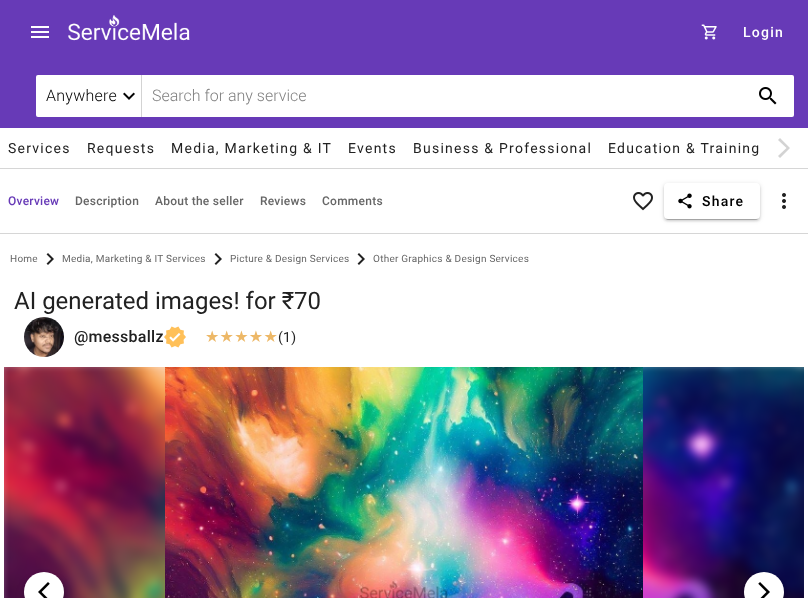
(async () => {
const canvas = document.querySelector("canvas")
canvas.width = 808
canvas.height = 598
const c = canvas.getContext("2d")
c.miterLimit = 4
c.fontKerning = "normal"
function T(s,x,y){c.fillText(s,x,y)}
function R(x,y,w,h){c.fillRect(x,y,w,h)}
function Q(x,y,w,h,r){c.beginPath();c.roundRect(x,y,w,h,r);c.fill()}
async function I(src,x,y,w,h){const img=new Image();img.src=src;await img.decode();c.drawImage(img,x,y,w,h)}
let path
c.fillStyle="#fff"
R(0,0,808,598)
c.save()
c.beginPath()
c.rect(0,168,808,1)
c.clip()
c.fillStyle="#00000029"
c.filter="blur(0.5px)"
c.beginPath()
c.rect(0,129,808,40)
c.fill()
c.filter="none"
c.restore()
c.fillStyle="#673ab7"
R(0,0,808,128)
await I("1.png",31,26,18,12)
await I("2.png",68,15,122,26)
await I("3.png",701,24,16,16)
c.letterSpacing="1.25px"
c.font="500 14px Roboto"
c.fillStyle="#fff"
T("Login",743,37)
Q(36,75,155,42,2)
c.letterSpacing="0.25px"
c.font="300 16px Roboto"
c.fillStyle="#000"
T("Anywhere",46,101)
await I("4.png",123,92,12,8)
c.fillStyle="#fff"
c.beginPath()
c.roundRect(141,75,653,42,[0,2,2,0])
c.fill()
c.fillStyle="#d3d3d3"
R(141,75,1,42)
c.letterSpacing="0px"
c.fillStyle="#808080"
T("Search for any service",152,101)
await I("5.png",759,87,18,18)
c.letterSpacing="1.25px"
c.font="14px Roboto"
c.fillStyle="#212121"
T("Services",8,153)
T("Requests",87,153)
T("Media, Marketing & IT",171,153)
T("Events",348,153)
T("Business & Professional",413,153)
T("Education & Training",608,153)
c.fillStyle="#d3d3d3"
path = new Path2D("M778 156l2 2l10-10l-10-10l-2 2l8.5 8z")
c.fill(path)
c.fillStyle="#00000029"
c.filter="blur(0.5px)"
c.beginPath()
c.rect(0,170,808,64)
c.fill()
c.filter="none"
c.fillStyle="#fff"
R(0,169,808,64)
c.letterSpacing="0.25px"
c.font="500 12px Roboto"
c.fillStyle="#673ab7"
T("Overview",8,205)
c.fillStyle="#666"
T("Description",75,205)
T("About the seller",155,205)
T("Reviews",260,205)
T("Comments",322,205)
await I("6.png",633,192,20,19)
c.fillStyle="#0000001f"
c.filter="blur(2.5px)"
c.beginPath()
c.roundRect(664,184,96,36,4)
c.fill()
c.filter="none"
c.fillStyle="#00000024"
c.filter="blur(1px)"
c.beginPath()
c.roundRect(664,185,96,36,4)
c.fill()
c.filter="none"
c.fillStyle="#00000033"
c.filter="blur(0.5px)"
c.beginPath()
c.roundRect(666,188,92,32,2)
c.fill()
c.filter="none"
c.fillStyle="#fff"
Q(664,183,96,36,4)
await I("7.png",678,193,14,16)
c.letterSpacing="1.25px"
c.font="500 14px Roboto"
c.fillStyle="#000"
T("Share",702,206)
await I("8.png",782,193,4,16)
c.letterSpacing="0.25px"
c.font="10px Roboto"
c.fillStyle="#666"
T("Home",10,262)
await I("9.png",46,253,8,12)
T("Media, Marketing & IT Services",62,262)
await I("9.png",214,253,8,12)
T("Picture & Design Services",230,262)
await I("9.png",357,253,8,12)
T("Other Graphics & Design Services",373,262)
c.letterSpacing="0px"
c.font="24px Roboto"
c.fillStyle="#212121"
T("AI generated images! for ₹70",14,309)
await I("10.png",24,317,40,40)
c.letterSpacing="0.25px"
c.font="500 16px Roboto"
T("@messballz",74,342)
await I("11.png",164,326,22,22)
c.font="16px DejaVu Sans"
c.fillStyle="#edb867"
T("★★★★★",205,342)
c.font="14px Roboto"
c.fillStyle="#212121"
T("(1)",278,342)
await I("12.png",4,367,800,231)
await I("13.png",165,367,478,231)
c.fillStyle="#00000024"
c.filter="blur(5px)"
c.beginPath()
c.roundRect(24,578,40,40,20)
c.fill()
c.filter="none"
c.fillStyle="#00000033"
c.filter="blur(2.5px)"
c.beginPath()
c.roundRect(25,576,38,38,19)
c.fill()
c.filter="none"
c.fillStyle="#fff"
c.beginPath()
c.arc(44,592,20,0,7)
c.fill()
await I("14.png",38,582,12,16)
c.fillStyle="#00000033"
c.filter="blur(2.5px)"
c.beginPath()
c.roundRect(745,576,38,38,19)
c.fill()
c.filter="none"
c.fillStyle="#fff"
c.beginPath()
c.arc(764,592,20,0,7)
c.fill()
await I("15.png",758,582,12,16)
})()
